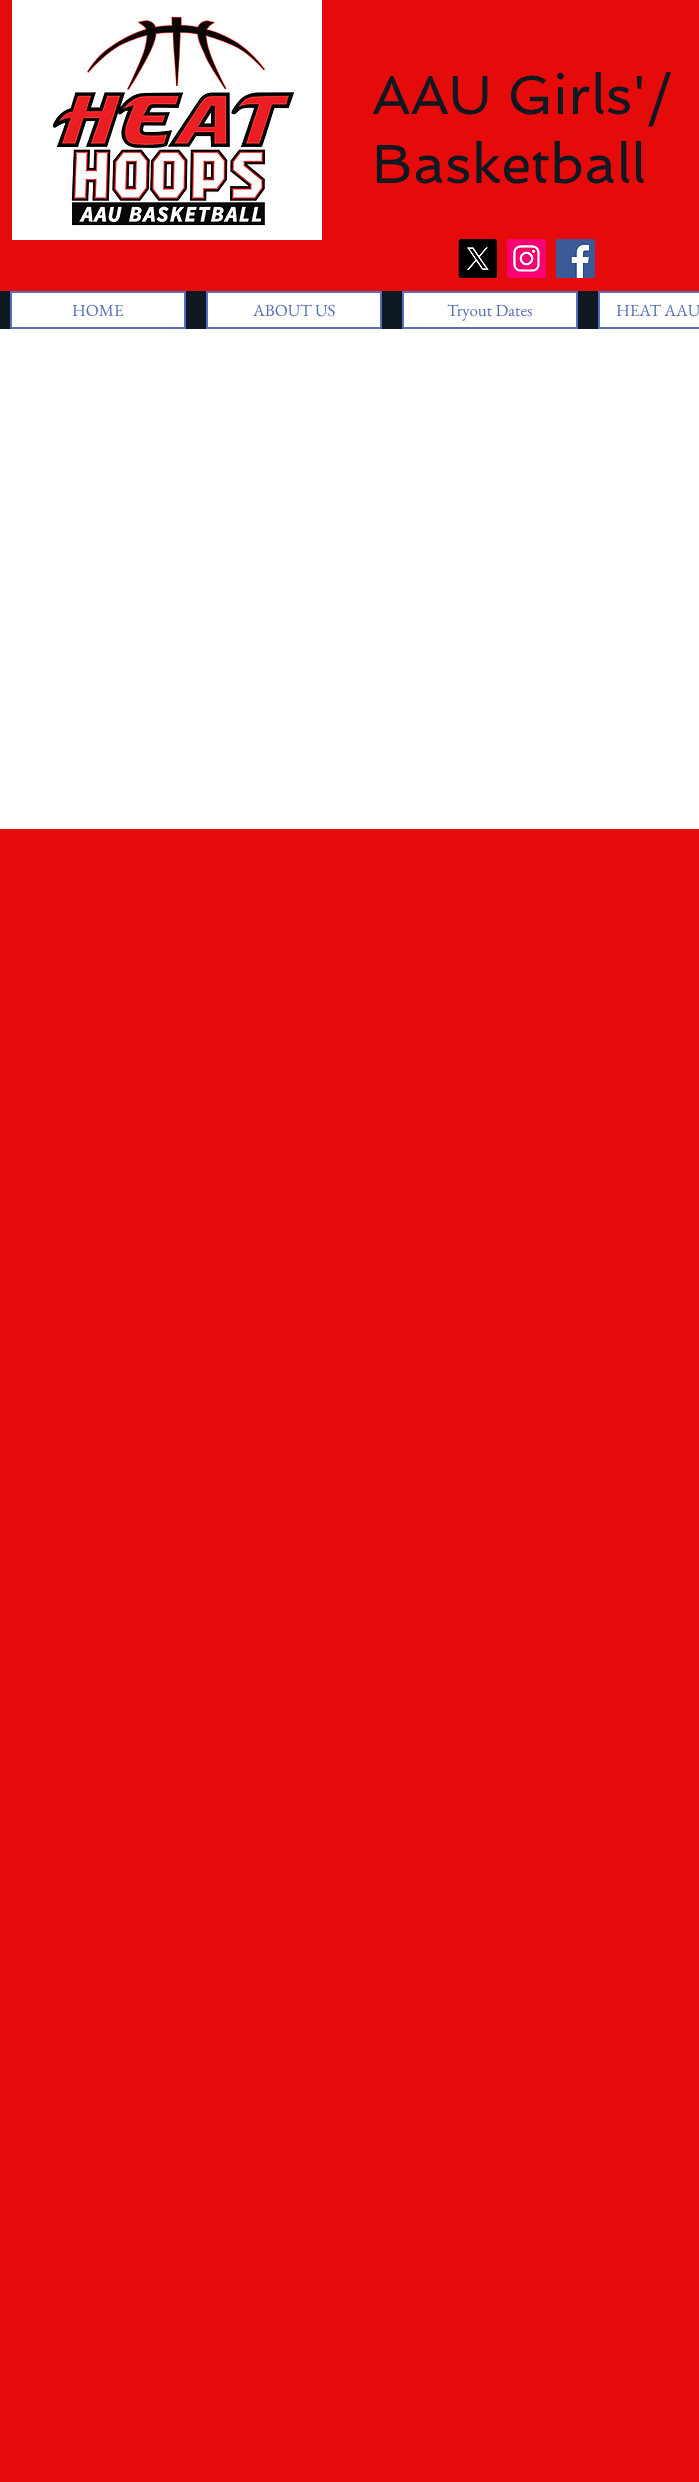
(async () => {
const canvas = document.querySelector("canvas")
canvas.width = 699
canvas.height = 2482
const c = canvas.getContext("2d")
c.miterLimit = 4
c.fontKerning = "normal"
function T(s,x,y){c.fillText(s,x,y)}
function R(x,y,w,h){c.fillRect(x,y,w,h)}
async function I(src,x,y,w,h){const img=new Image();img.src=src;await img.decode();c.drawImage(img,x,y,w,h)}
c.fillStyle="#e60b0b"
R(0,0,699,2482)
await I("1.png",12,0,310,240)
c.font="55px Spinnaker"
c.fillStyle="#0e1821"
T("AAU Girls'/",372,114)
T("Basketball",372,183)
await I("2.png",458,239,39,39)
await I("3.png",507,239,39,39)
await I("4.png",556,239,39,39)
R(0,291,598,38)
c.fillStyle="#fff"
c.beginPath()
c.rect(11,292,174,36)
c.fill()
c.strokeStyle="#566fb8"
c.lineWidth=2
c.stroke()
c.font="17px EB Garamond"
c.fillStyle="#566fb8"
T("HOME",72,316)
c.fillStyle="#fff"
c.beginPath()
c.rect(207,292,174,36)
c.fill()
c.stroke()
c.fillStyle="#566fb8"
T("ABOUT US",253,316)
c.fillStyle="#fff"
c.beginPath()
c.rect(403,292,174,36)
c.fill()
c.stroke()
c.fillStyle="#566fb8"
T("Tryout Dates",447,316)
c.fillStyle="#fff"
c.beginPath()
c.rect(599,292,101,36)
c.fill()
c.stroke()
c.fillStyle="#566fb8"
T("HEAT AAU",616,316)
c.fillStyle="#fff"
R(0,329,699,500)
})()
